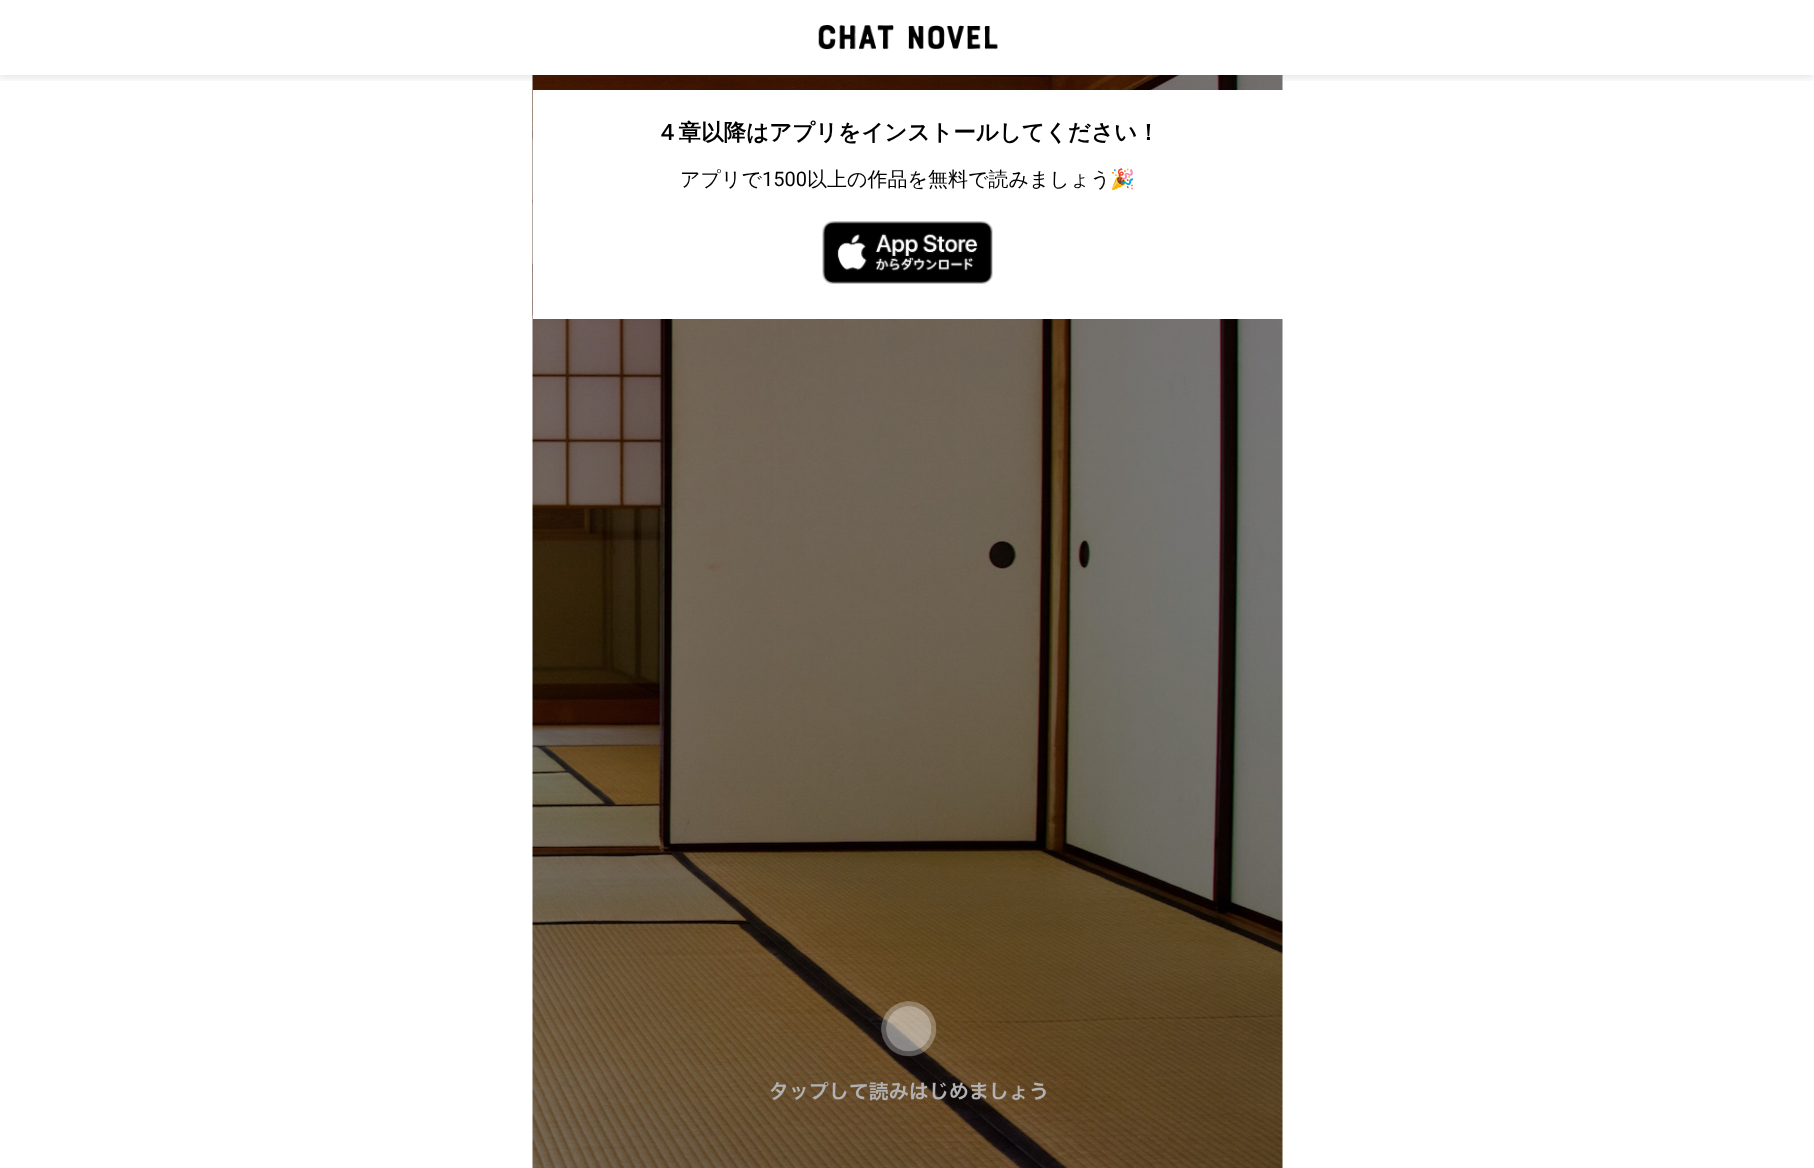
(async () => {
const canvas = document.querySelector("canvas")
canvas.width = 1814
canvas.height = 1168
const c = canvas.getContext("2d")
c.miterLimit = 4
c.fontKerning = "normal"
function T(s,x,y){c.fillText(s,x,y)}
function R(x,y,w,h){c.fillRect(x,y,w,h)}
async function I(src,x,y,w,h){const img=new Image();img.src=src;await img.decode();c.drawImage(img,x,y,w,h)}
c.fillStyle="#fff"
R(0,0,1814,1168)
c.save()
c.beginPath()
c.rect(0,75,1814,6)
c.clip()
c.fillStyle="#0000001a"
c.filter="blur(4px)"
c.beginPath()
c.rect(-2,3,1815,75)
c.fill()
c.filter="none"
c.restore()
await I("1.png",818,25,180,25)
await I("2.png",532,75,751,1093)
R(533,90,750,229)
c.font="bold 22.5px WenQuanYi Zen Hei"
c.fillStyle="#000"
T("４章以降はアプリをインストールしてください！",656,140)
c.font="500 20px WenQuanYi Zen Hei"
T("アプリで",680,186)
c.font="20px Roboto"
T("1500",762,186)
c.font="500 20px WenQuanYi Zen Hei"
T("以上の作品を無料で読みましょう",807,186)
c.font="20px Noto Color Emoji"
T("🎉",1110,186)
await I("3.png",822,221,171,63)
await I("4.png",770,1001,277,100)
})()
